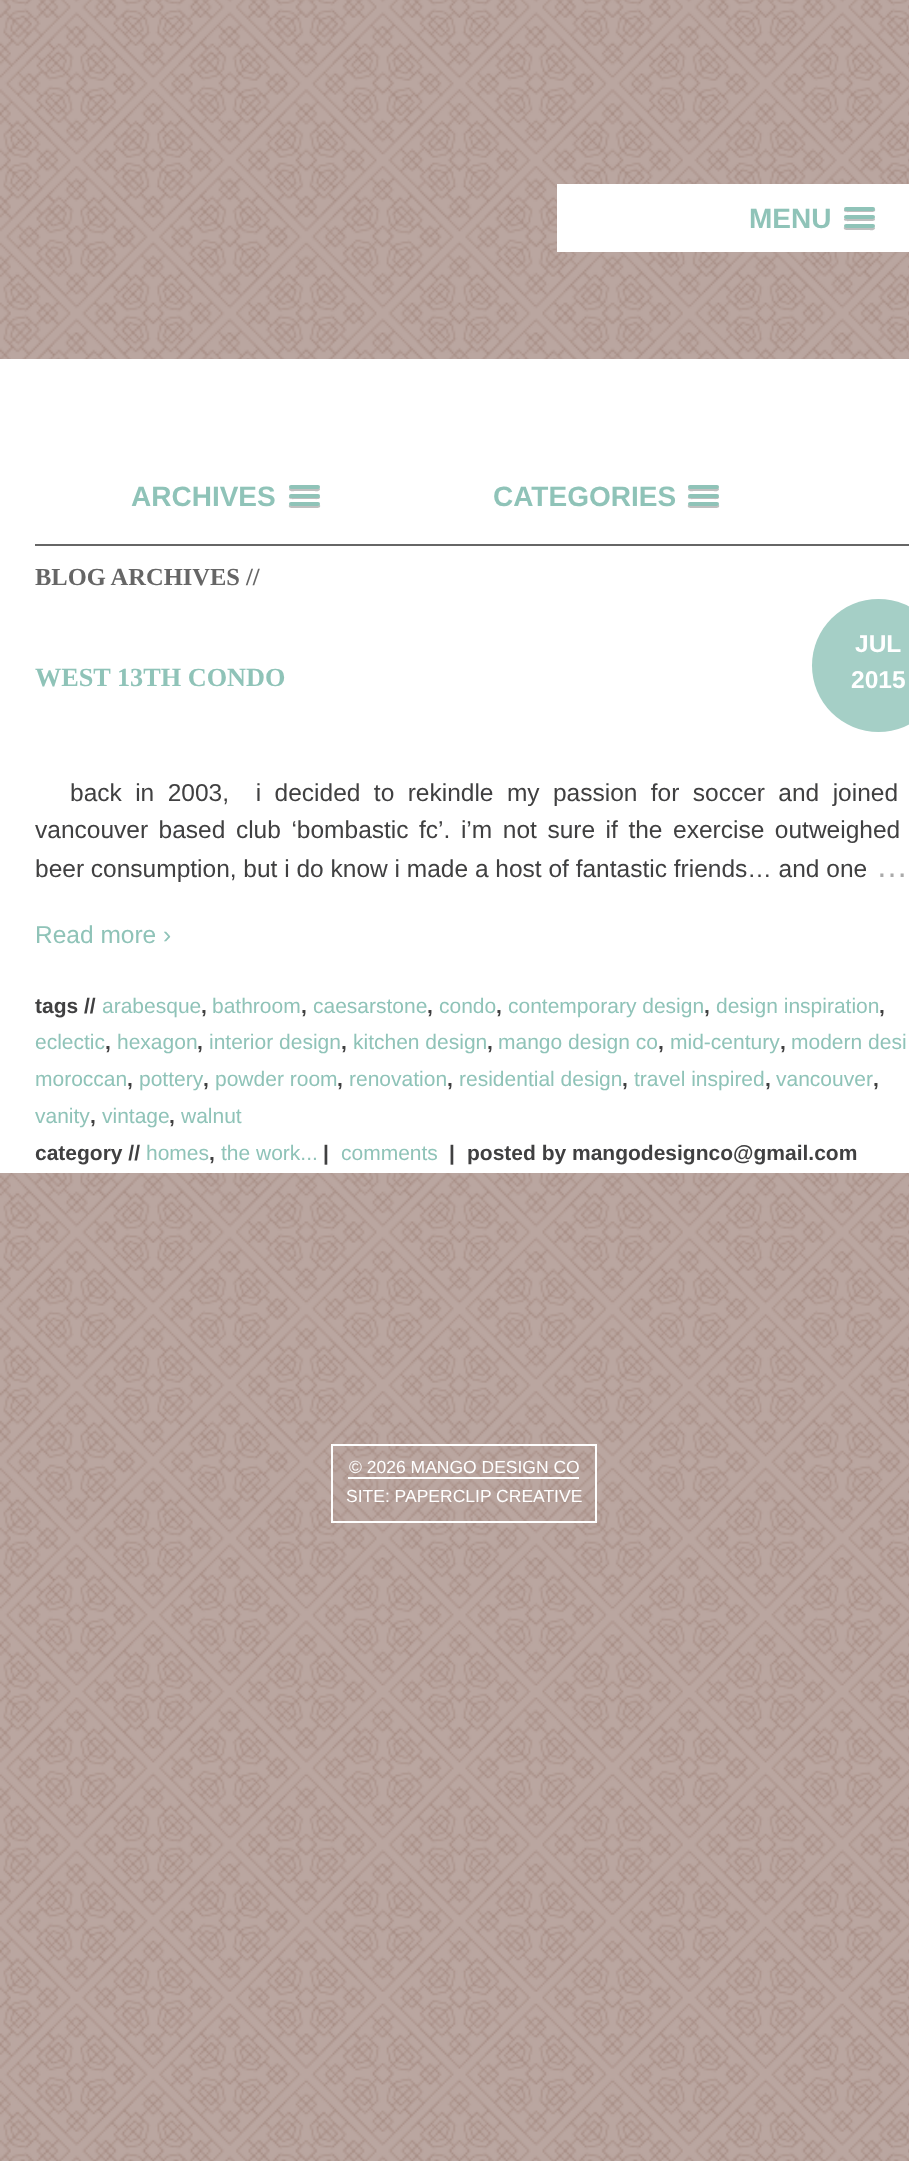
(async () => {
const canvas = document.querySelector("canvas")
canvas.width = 909
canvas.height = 2161
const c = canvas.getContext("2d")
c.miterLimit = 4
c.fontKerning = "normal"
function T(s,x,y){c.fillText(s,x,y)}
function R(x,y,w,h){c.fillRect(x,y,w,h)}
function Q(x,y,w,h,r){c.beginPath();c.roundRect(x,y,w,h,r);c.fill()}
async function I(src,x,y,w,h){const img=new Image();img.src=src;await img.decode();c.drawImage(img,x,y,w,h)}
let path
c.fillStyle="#fff"
R(0,0,909,2161)
await I("1.png",0,0,909,2161)
R(557,184,352,68)
c.font="bold 28px Liberation Sans"
c.fillStyle="#8fc3b8"
T("MENU",749,228)
c.fillStyle="#bfbfbf"
path = new Path2D("M844 209.5c-1 3.5 5.5 2.5 6.5 2.5h18c1 0 8 1 6.5-3l-1.5 1h-28.5z")
c.fill(path)
c.fillStyle="#8fc3b8"
Q(844,207,31,4,2)
c.fillStyle="#bfbfbf"
path = new Path2D("M844 218.5c-1 3.5 5.5 2.5 6.5 2.5h18c.5 0 8.5 1 6-3l-1 .5h-28.5z")
c.fill(path)
c.fillStyle="#8fc3b8"
Q(844,215,31,4,2)
c.fillStyle="#bfbfbf"
path = new Path2D("M844 227c-1.5 4 5.5 3 6.5 3h18c1 0 6 1 6.5-1.5l-.5-1.5l-1 .5c-2.5 .5-28.5 .5-29.5-.5z")
c.fill(path)
c.fillStyle="#8fc3b8"
Q(844,224,31,4,2)
c.fillStyle="#fff"
R(0,359,909,814)
c.fillStyle="#666"
R(35,544,874,2)
c.fillStyle="#8fc3b8"
T("ARCHIVES",131,506)
c.fillStyle="#bfbfbf"
path = new Path2D("M289.5 488l-.5 1.5c.5 2.5 5.5 1.5 6.5 1.5h18c1 0 6 1 6.5-1.5l-.5-1.5c-1 .5-29 .5-30 0z")
c.fill(path)
c.fillStyle="#8fc3b8"
Q(289,485,31,4,2)
c.fillStyle="#bfbfbf"
path = new Path2D("M289 496.5c-1 3.5 5.5 2.5 6.5 2.5h18c1 0 7.5 1 6.5-2.5l-1.5 .5h-28z")
c.fill(path)
c.fillStyle="#8fc3b8"
Q(289,494,31,4,2)
c.fillStyle="#bfbfbf"
path = new Path2D("M289 505c-1.5 4 5.5 3 6.5 3h18c1 0 8 1 6.5-3l-1.5 .5h-28z")
c.fill(path)
c.fillStyle="#8fc3b8"
Q(289,502,31,4,2)
T("CATEGORIES",493,506)
c.fillStyle="#bfbfbf"
path = new Path2D("M688.5 488l-.5 1.5c.5 2.5 5.5 1.5 6.5 1.5h18c1 0 6 1 6.5-1.5l-.5-1.5c-1 .5-29 .5-30 0z")
c.fill(path)
c.fillStyle="#8fc3b8"
Q(688,485,31,4,2)
c.fillStyle="#bfbfbf"
path = new Path2D("M688 496.5c-1 3.5 5.5 2.5 6.5 2.5h18c1 0 7.5 1 6.5-2.5l-1.5 .5h-28z")
c.fill(path)
c.fillStyle="#8fc3b8"
Q(688,494,31,4,2)
c.fillStyle="#bfbfbf"
path = new Path2D("M688 505c-1.5 4 5.5 3 6.5 3h18c1 0 8 1 6.5-3l-1.5 .5h-28z")
c.fill(path)
c.fillStyle="#8fc3b8"
Q(688,502,31,4,2)
c.font="bold 24.5px Liberation Serif"
c.fillStyle="#666"
T("BLOG ARCHIVES //",35,585)
c.font="bold 26.25px Liberation Serif"
c.fillStyle="#8fc3b8"
T("WEST 13TH CONDO",35,686)
c.fillStyle="#a5cfc6"
c.beginPath()
c.arc(878.5,665.5,66.5,0,7)
c.fill()
c.font="bold 24.5px Liberation Sans"
c.fillStyle="#fff"
T("JUL",855,652)
T("2015",851,688)
c.wordSpacing="6.6px"
c.font="24.5px Liberation Sans"
c.fillStyle="#404041"
T("back in 2003,  i decided to rekindle my passion for soccer and joined",70,801)
c.wordSpacing="3.75px"
T("vancouver based club ‘bombastic fc’. i’m not sure if the exercise outweighed",35,838)
c.wordSpacing="0px"
T("beer consumption, but i do know i made a host of fantastic friends… and one",35,877)
c.font="32px Liberation Sans"
c.fillStyle="#aaa"
T("…",876,877)
c.font="24.5px Liberation Sans"
c.fillStyle="#8fc3b8"
T("Read more ›",35,943)
c.font="bold 21px Liberation Sans"
c.fillStyle="#404041"
T("tags //",35,1013)
c.font="21px Liberation Sans"
c.fillStyle="#8fc3b8"
T("arabesque",102,1013)
c.font="bold 21px Liberation Sans"
c.fillStyle="#404041"
T(",",201,1013)
c.font="21px Liberation Sans"
c.fillStyle="#8fc3b8"
T("bathroom",212,1013)
c.font="bold 21px Liberation Sans"
c.fillStyle="#404041"
T(",",301,1013)
c.font="21px Liberation Sans"
c.fillStyle="#8fc3b8"
T("caesarstone",313,1013)
c.font="bold 21px Liberation Sans"
c.fillStyle="#404041"
T(",",427,1013)
c.font="21px Liberation Sans"
c.fillStyle="#8fc3b8"
T("condo",439,1013)
c.font="bold 21px Liberation Sans"
c.fillStyle="#404041"
T(",",496,1013)
c.font="21px Liberation Sans"
c.fillStyle="#8fc3b8"
T("contemporary design",508,1013)
c.font="bold 21px Liberation Sans"
c.fillStyle="#404041"
T(",",704,1013)
c.font="21px Liberation Sans"
c.fillStyle="#8fc3b8"
T("design inspiration",716,1013)
c.font="bold 21px Liberation Sans"
c.fillStyle="#404041"
T(",",879,1013)
c.font="21px Liberation Sans"
c.fillStyle="#8fc3b8"
T("eclectic",35,1049)
c.font="bold 21px Liberation Sans"
c.fillStyle="#404041"
T(",",105,1049)
c.font="21px Liberation Sans"
c.fillStyle="#8fc3b8"
T("hexagon",117,1049)
c.font="bold 21px Liberation Sans"
c.fillStyle="#404041"
T(",",197,1049)
c.font="21px Liberation Sans"
c.fillStyle="#8fc3b8"
T("interior design",209,1049)
c.font="bold 21px Liberation Sans"
c.fillStyle="#404041"
T(",",341,1049)
c.font="21px Liberation Sans"
c.fillStyle="#8fc3b8"
T("kitchen design",353,1049)
c.font="bold 21px Liberation Sans"
c.fillStyle="#404041"
T(",",487,1049)
c.font="21px Liberation Sans"
c.fillStyle="#8fc3b8"
T("mango design co",498,1049)
c.font="bold 21px Liberation Sans"
c.fillStyle="#404041"
T(",",658,1049)
c.font="21px Liberation Sans"
c.fillStyle="#8fc3b8"
T("mid-century",670,1049)
c.font="bold 21px Liberation Sans"
c.fillStyle="#404041"
T(",",780,1049)
c.font="21px Liberation Sans"
c.fillStyle="#8fc3b8"
T("modern desi",791,1049)
T("moroccan",35,1086)
c.font="bold 21px Liberation Sans"
c.fillStyle="#404041"
T(",",127,1086)
c.font="21px Liberation Sans"
c.fillStyle="#8fc3b8"
T("pottery",139,1086)
c.font="bold 21px Liberation Sans"
c.fillStyle="#404041"
T(",",203,1086)
c.font="21px Liberation Sans"
c.fillStyle="#8fc3b8"
T("powder room",215,1086)
c.font="bold 21px Liberation Sans"
c.fillStyle="#404041"
T(",",337,1086)
c.font="21px Liberation Sans"
c.fillStyle="#8fc3b8"
T("renovation",349,1086)
c.font="bold 21px Liberation Sans"
c.fillStyle="#404041"
T(",",447,1086)
c.font="21px Liberation Sans"
c.fillStyle="#8fc3b8"
T("residential design",459,1086)
c.font="bold 21px Liberation Sans"
c.fillStyle="#404041"
T(",",622,1086)
c.font="21px Liberation Sans"
c.fillStyle="#8fc3b8"
T("travel inspired",634,1086)
c.font="bold 21px Liberation Sans"
c.fillStyle="#404041"
T(",",765,1086)
c.font="21px Liberation Sans"
c.fillStyle="#8fc3b8"
T("vancouver",776,1086)
c.font="bold 21px Liberation Sans"
c.fillStyle="#404041"
T(",",873,1086)
c.font="21px Liberation Sans"
c.fillStyle="#8fc3b8"
T("vanity",35,1123)
c.font="bold 21px Liberation Sans"
c.fillStyle="#404041"
T(",",90,1123)
c.font="21px Liberation Sans"
c.fillStyle="#8fc3b8"
T("vintage",102,1123)
c.font="bold 21px Liberation Sans"
c.fillStyle="#404041"
T(",",169,1123)
c.font="21px Liberation Sans"
c.fillStyle="#8fc3b8"
T("walnut",181,1123)
c.font="bold 21px Liberation Sans"
c.fillStyle="#404041"
T("category //",35,1160)
c.font="21px Liberation Sans"
c.fillStyle="#8fc3b8"
T("homes",146,1160)
c.font="bold 21px Liberation Sans"
c.fillStyle="#404041"
T(",",209,1160)
c.font="21px Liberation Sans"
c.fillStyle="#8fc3b8"
T("the work...",221,1160)
c.font="bold 21px Liberation Sans"
c.fillStyle="#404041"
T("|",323,1160)
c.font="21px Liberation Sans"
c.fillStyle="#8fc3b8"
T("comments",341,1160)
c.font="bold 21px Liberation Sans"
c.fillStyle="#404041"
T("|",449,1160)
T("posted by mangodesignco@gmail.com",467,1160)
c.strokeStyle="#fff"
c.lineWidth=2
c.strokeRect(332,1445,264,77)
c.font="17.5px Liberation Sans"
c.fillStyle="#fff"
T("© 2026 MANGO DESIGN CO",349,1473)
R(348,1477,231,2)
T("SITE: PAPERCLIP CREATIVE",346,1502)
})()
